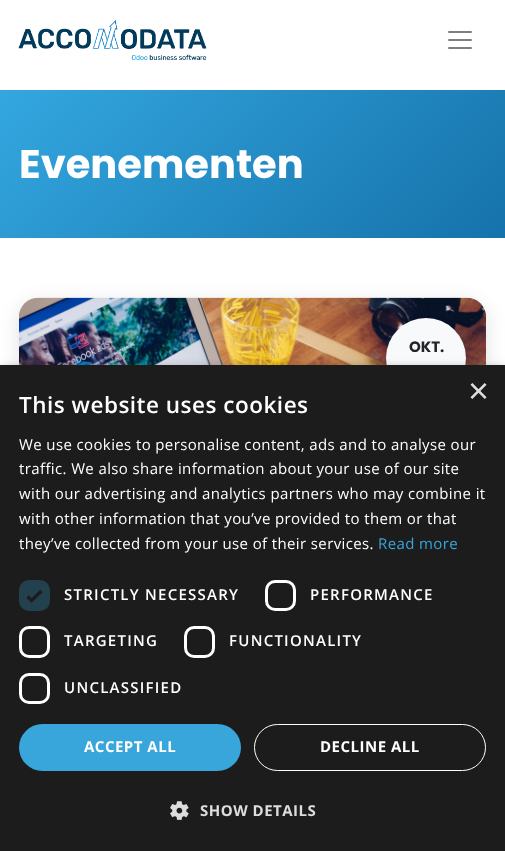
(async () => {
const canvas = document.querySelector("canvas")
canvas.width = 505
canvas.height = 851
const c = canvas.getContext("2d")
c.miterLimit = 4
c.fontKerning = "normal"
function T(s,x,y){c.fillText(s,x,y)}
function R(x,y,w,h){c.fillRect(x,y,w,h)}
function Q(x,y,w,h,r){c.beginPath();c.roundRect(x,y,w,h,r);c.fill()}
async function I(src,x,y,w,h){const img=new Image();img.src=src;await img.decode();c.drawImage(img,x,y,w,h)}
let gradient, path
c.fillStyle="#fff"
R(0,0,505,851)
await I("1.png",18,20,189,40)
await I("2.png",448,31,24,18)
gradient = c.createLinearGradient(89,.6,416,327)
gradient.addColorStop(0,"#34a7e0")
gradient.addColorStop(1,"#1672aa")
c.fillStyle = gradient
R(0,90,505,148)
c.font="bold 40px Poppins"
c.fillStyle="#fff"
T("Evenementen",19,178)
c.fillStyle="#0000001f"
c.filter="blur(10px)"
c.beginPath()
c.roundRect(19,303,467,526,20)
c.fill()
c.filter="none"
await I("3.png",19,297,467,68)
c.fillStyle="#0000001a"
c.filter="blur(2px)"
c.beginPath()
c.roundRect(386,319,80,80,40)
c.fill()
c.filter="none"
c.fillStyle="#f8f9fa"
c.beginPath()
c.arc(426,358,40,0,7)
c.fill()
c.font="bold 15px Poppins"
c.fillStyle="#212529"
T("OKT.",409,352)
c.fillStyle="#00000059"
c.filter="blur(5px)"
c.beginPath()
c.rect(1,368,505,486)
c.fill()
c.filter="none"
c.fillStyle="#1c1c1c"
R(0,365,505,486)
c.font="36px Liberation Sans"
c.fillStyle="#ddd"
T("×",468,403)
c.letterSpacing="0.5px"
c.font="600 22.5px Open Sans"
c.fillStyle="#fff"
T("This website uses cookies",19,413)
c.letterSpacing="0.38px"
c.font="15px Open Sans"
T("We use cookies to personalise content, ads and to analyse our",19,450)
T("traffic. We also share information about your use of our site",19,474)
T("with our advertising and analytics partners who may combine it",19,499)
T("with other information that you’ve provided to them or that",19,524)
T("they’ve collected from your use of their services.",19,549)
c.fillStyle="#38a5db"
T("Read more",378,549)
c.fillStyle="#23404e"
Q(19,580,31,31,10)
path = new Path2D("M27.5 596.5l4 4l10-9.5")
c.strokeStyle="#1c1c1c"
c.lineWidth=3.3
c.stroke(path)
c.letterSpacing="1.25px"
c.font="600 15px Open Sans"
c.fillStyle="#fff"
T("STRICTLY NECESSARY",64,600)
c.beginPath()
c.roundRect(266.5,581.5,28,28,8.5)
c.strokeStyle="#fff"
c.lineWidth=3
c.stroke()
T("PERFORMANCE",310,600)
c.beginPath()
c.roundRect(20.5,627.5,28,29,8.5)
c.stroke()
T("TARGETING",64,646)
c.beginPath()
c.roundRect(185.5,627.5,28,29,8.5)
c.stroke()
T("FUNCTIONALITY",229,646)
c.beginPath()
c.roundRect(20.5,674.5,28,28,8.5)
c.stroke()
T("UNCLASSIFIED",64,693)
c.fillStyle="#38a5db"
Q(19,724,222,47,23.5)
c.letterSpacing="0.5px"
c.font="bold 15px Open Sans"
c.fillStyle="#fff"
T("ACCEPT ALL",84,752)
c.beginPath()
c.roundRect(254.5,724.5,231,46,23)
c.lineWidth=1
c.stroke()
T("DECLINE ALL",320,752)
await I("4.png",170,801,19,19)
c.fillStyle="#ddd"
T("SHOW DETAILS",200,816)
})()
